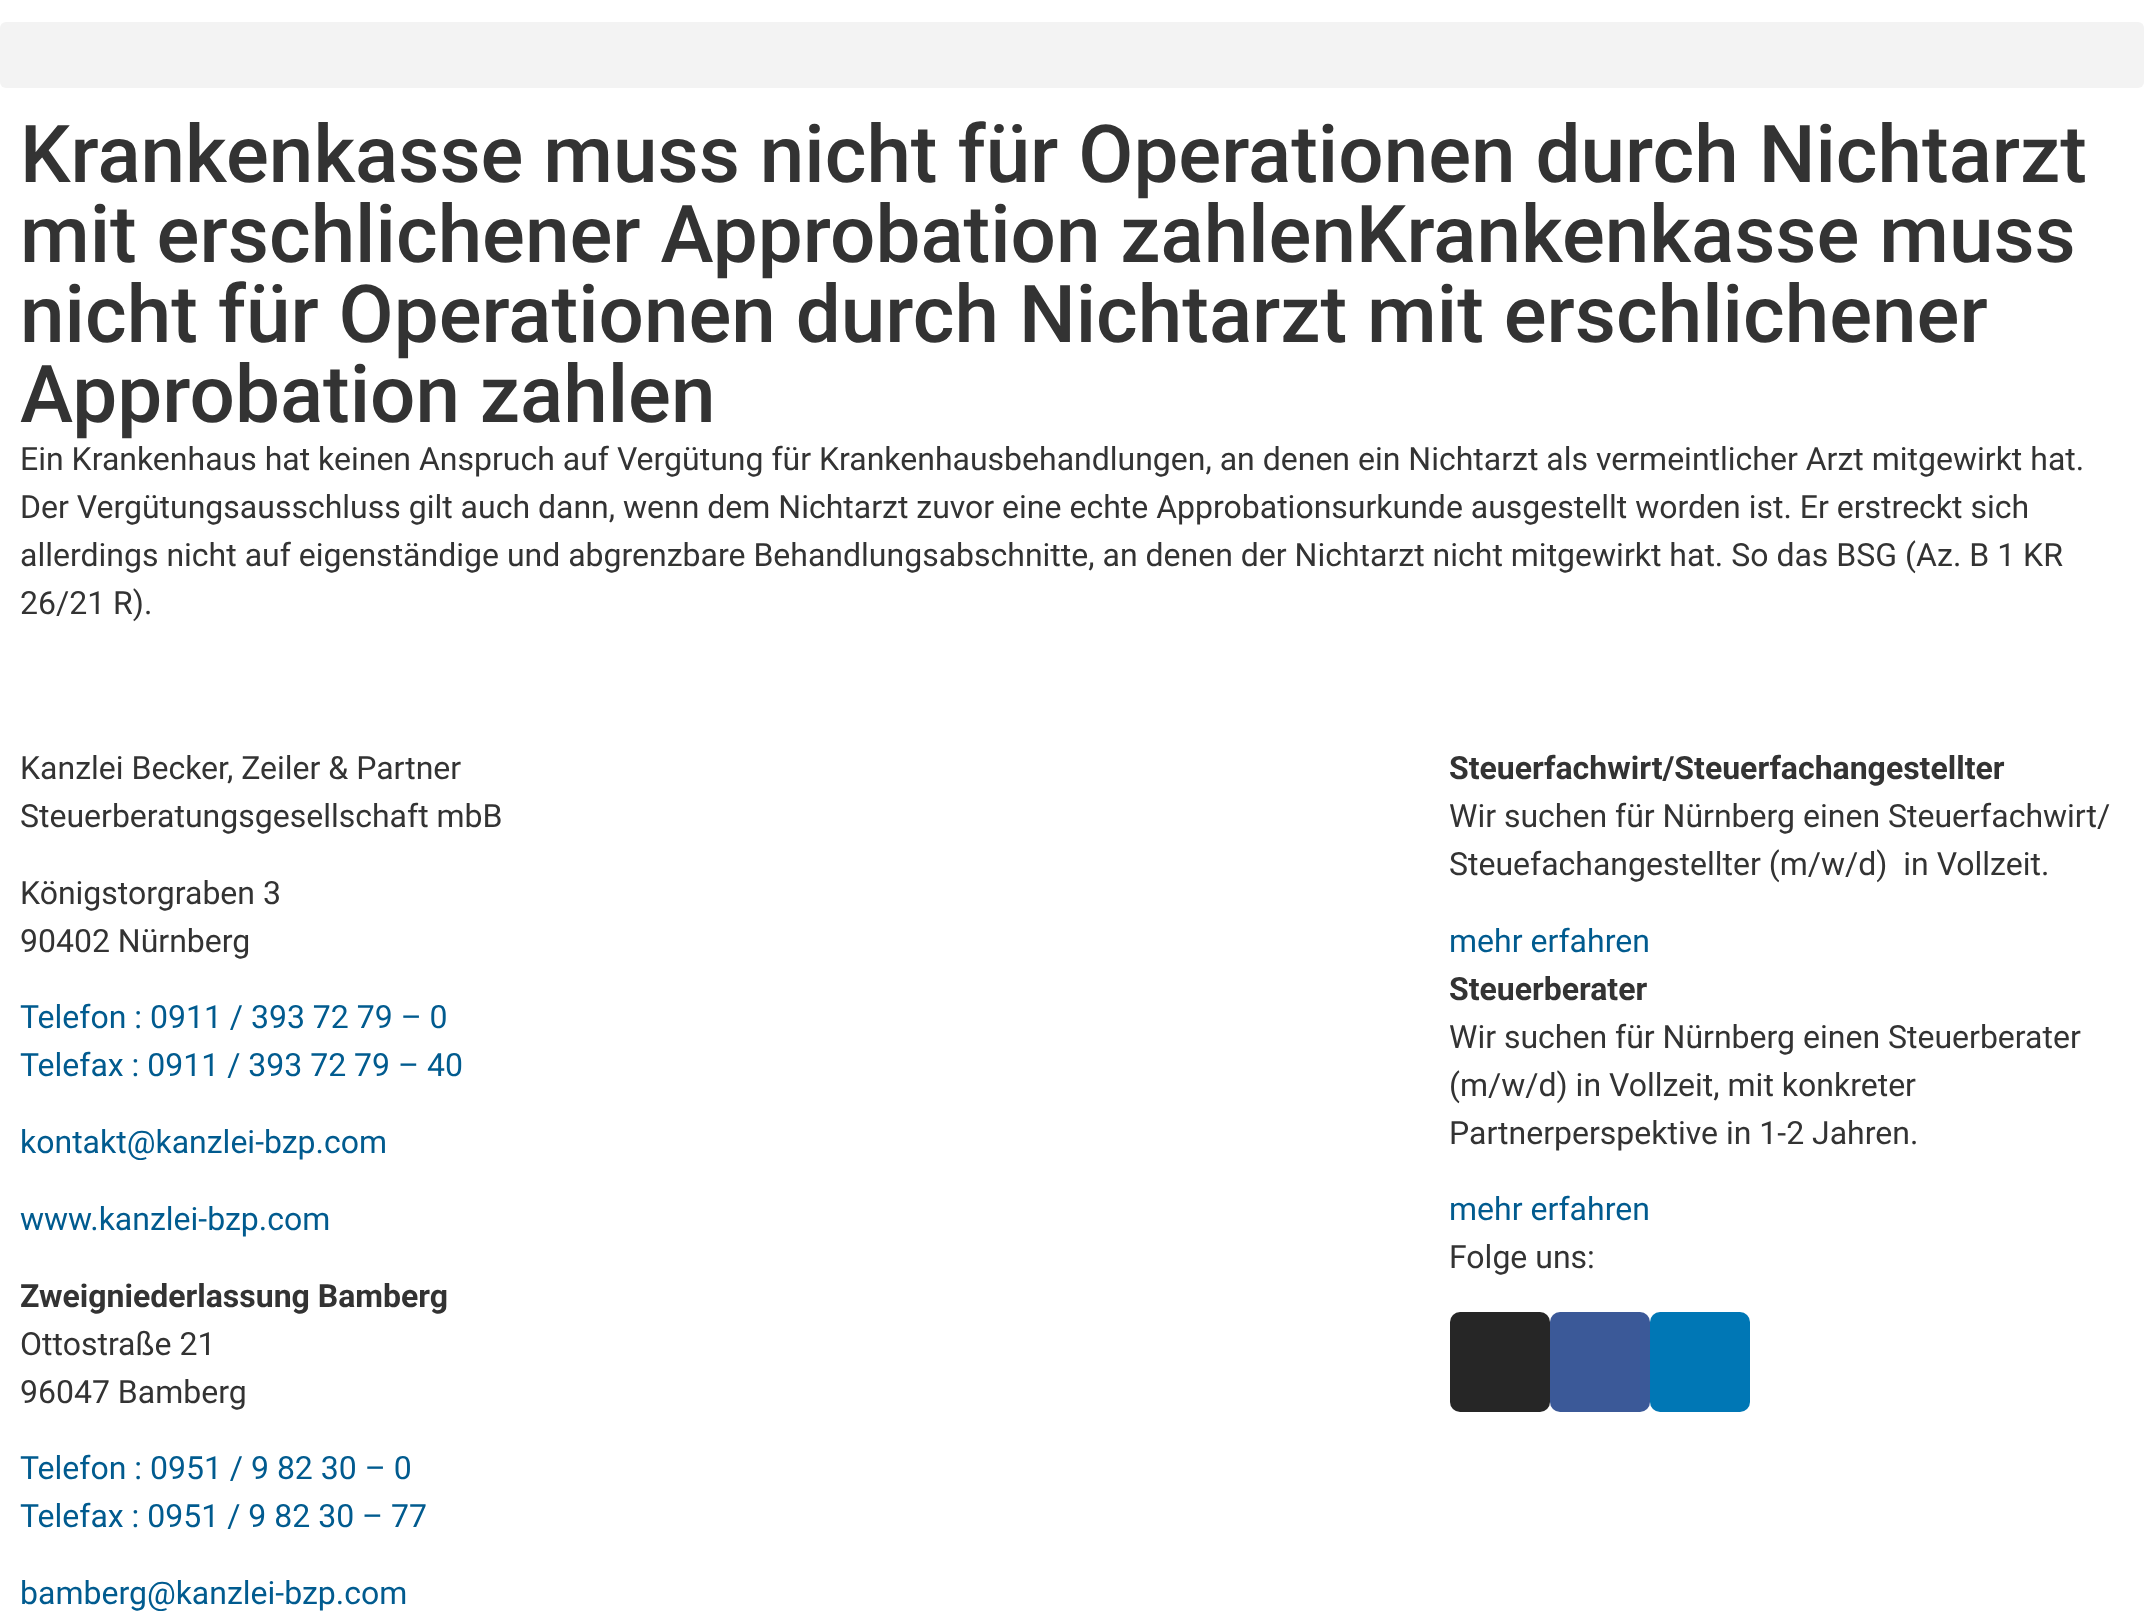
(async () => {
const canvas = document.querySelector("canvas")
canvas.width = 2144
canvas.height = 1623
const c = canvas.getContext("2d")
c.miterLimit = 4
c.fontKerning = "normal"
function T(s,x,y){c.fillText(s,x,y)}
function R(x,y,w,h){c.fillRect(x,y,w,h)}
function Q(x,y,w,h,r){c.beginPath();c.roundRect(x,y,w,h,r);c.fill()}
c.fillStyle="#fff"
R(0,0,2144,1623)
c.fillStyle="#f3f3f3"
Q(0,22,2144,66,6)
c.font="500 80px Roboto"
c.fillStyle="#333"
T("Krankenkasse muss nicht für Operationen durch Nichtarzt",20,182)
T("mit erschlichener Approbation zahlenKrankenkasse muss",20,262)
T("nicht für Operationen durch Nichtarzt mit erschlichener",20,342)
T("Approbation zahlen",20,422)
c.font="32px Roboto"
T("Ein Krankenhaus hat keinen Anspruch auf Vergütung für Krankenhausbehandlungen, an denen ein Nichtarzt als vermeintlicher Arzt mitgewirkt hat.",20,470)
T("Der Vergütungsausschluss gilt auch dann, wenn dem Nichtarzt zuvor eine echte Approbationsurkunde ausgestellt worden ist. Er erstreckt sich",20,518)
T("allerdings nicht auf eigenständige und abgrenzbare Behandlungsabschnitte, an denen der Nichtarzt nicht mitgewirkt hat. So das BSG (Az. B 1 KR",20,566)
T("26/21 R).",20,614)
T("Kanzlei Becker, Zeiler & Partner",20,779)
T("Steuerberatungsgesellschaft mbB",20,827)
T("Königstorgraben 3",20,904)
T("90402 Nürnberg",20,952)
c.fillStyle="#015b8f"
T("Telefon : 0911 / 393 72 79 – 0",20,1028)
T("Telefax : 0911 / 393 72 79 – 40",20,1076)
T("kontakt@kanzlei-bzp.com",20,1153)
T("www.kanzlei-bzp.com",20,1230)
c.font="bold 32px Roboto"
c.fillStyle="#333"
T("Zweigniederlassung Bamberg",20,1307)
c.font="32px Roboto"
T("Ottostraße 21",20,1355)
T("96047 Bamberg",20,1403)
c.fillStyle="#015b8f"
T("Telefon : 0951 / 9 82 30 – 0",20,1479)
T("Telefax : 0951 / 9 82 30 – 77",20,1527)
T("bamberg@kanzlei-bzp.com",20,1604)
c.font="bold 32px Roboto"
c.fillStyle="#333"
T("Steuerfachwirt/Steuerfachangestellter",1449,779)
c.font="32px Roboto"
T("Wir suchen für Nürnberg einen Steuerfachwirt/",1449,827)
T("Steuefachangestellter (m/w/d)  in Vollzeit.",1449,875)
c.fillStyle="#015b8f"
T("mehr erfahren",1449,952)
c.font="bold 32px Roboto"
c.fillStyle="#333"
T("Steuerberater",1449,1000)
c.font="32px Roboto"
T("Wir suchen für Nürnberg einen Steuerberater",1449,1048)
T("(m/w/d) in Vollzeit, mit konkreter",1449,1096)
T("Partnerperspektive in 1-2 Jahren.",1449,1144)
c.fillStyle="#015b8f"
T("mehr erfahren",1449,1220)
c.fillStyle="#333"
T("Folge uns:",1449,1268)
c.fillStyle="#262626"
Q(1450,1312,100,100,10)
c.fillStyle="#3b5998"
Q(1550,1312,100,100,10)
c.fillStyle="#0077b5"
Q(1650,1312,100,100,10)
})()
